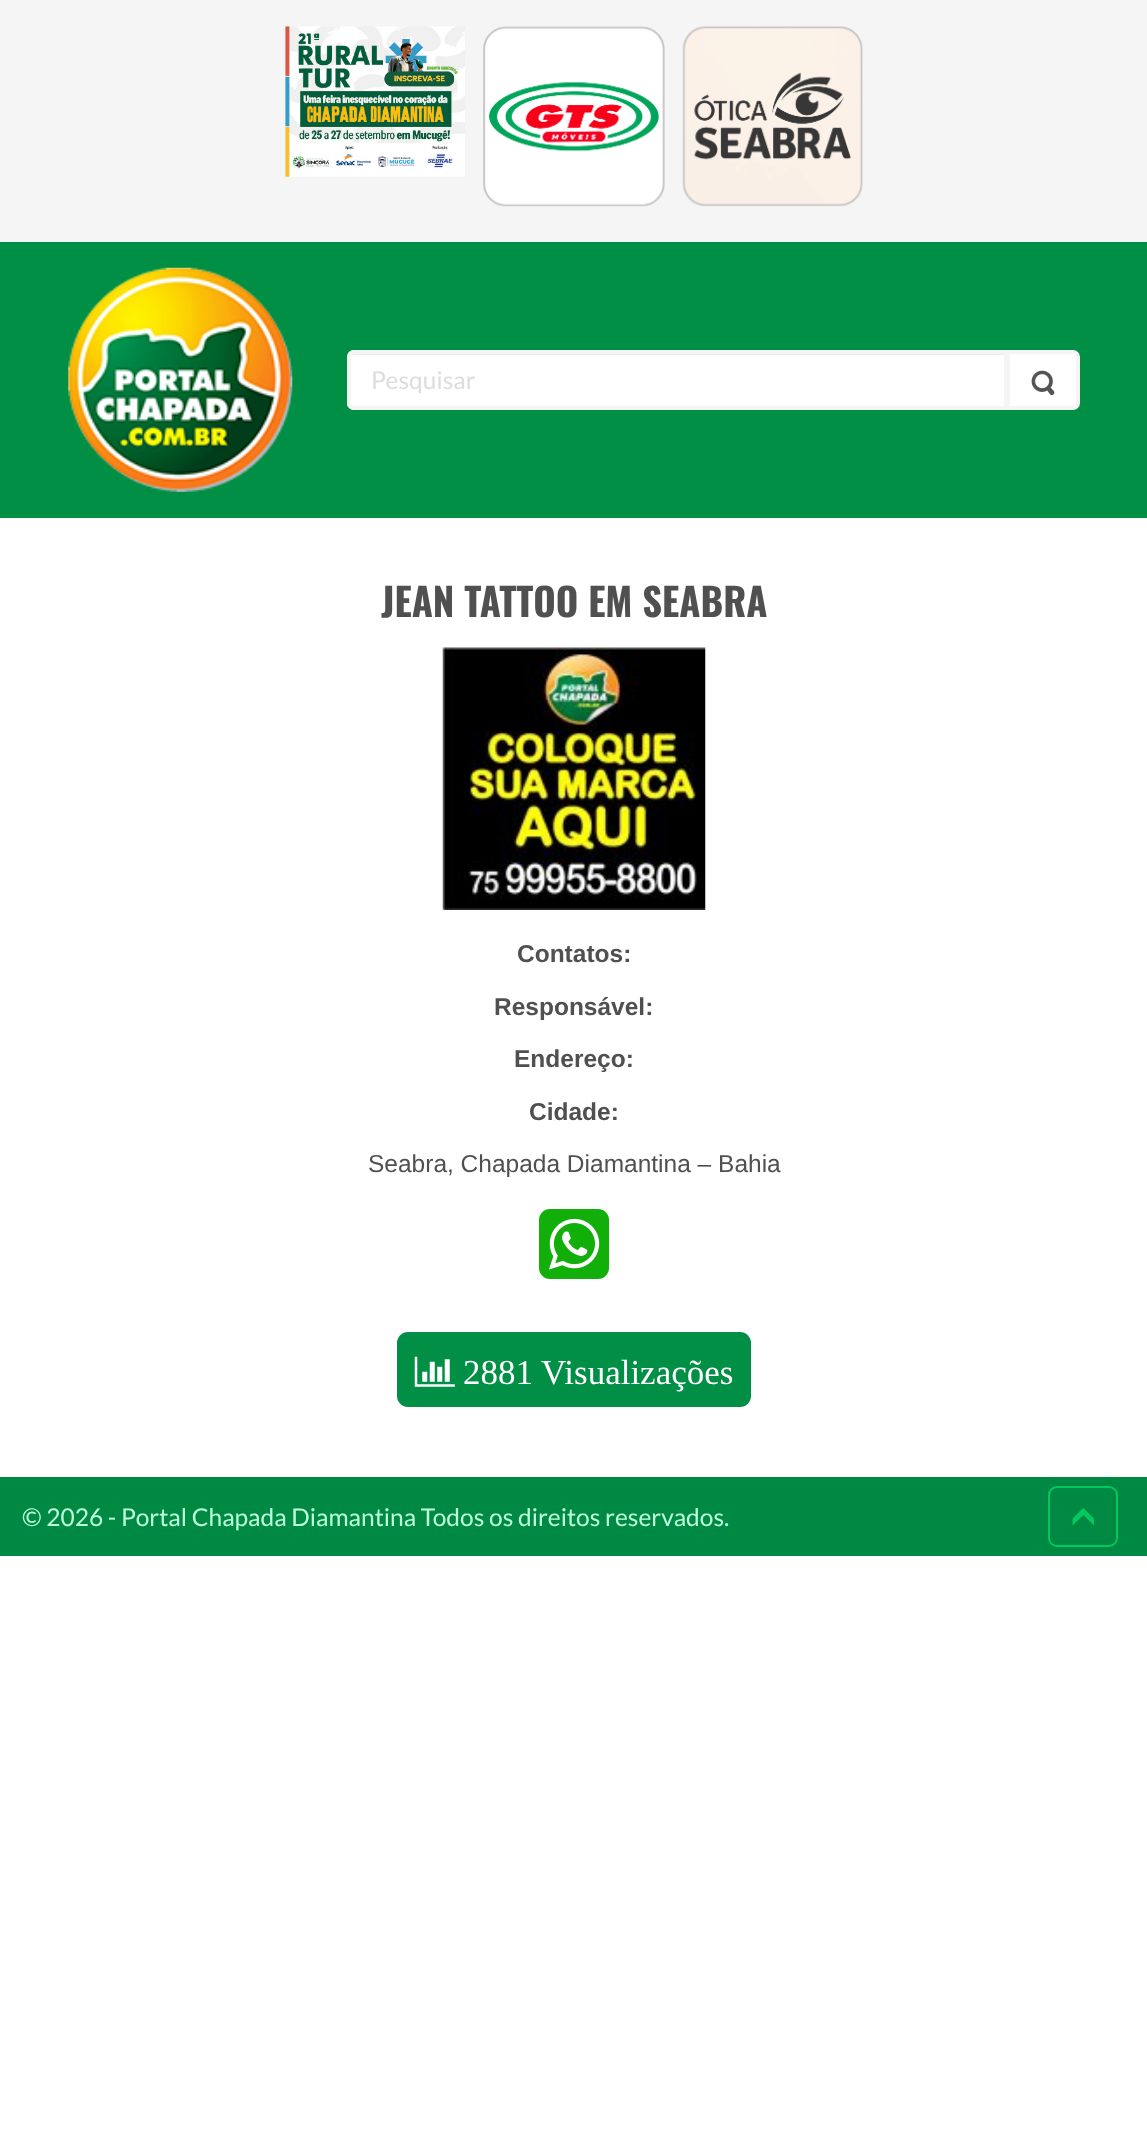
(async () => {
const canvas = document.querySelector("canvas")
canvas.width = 1147
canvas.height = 2144
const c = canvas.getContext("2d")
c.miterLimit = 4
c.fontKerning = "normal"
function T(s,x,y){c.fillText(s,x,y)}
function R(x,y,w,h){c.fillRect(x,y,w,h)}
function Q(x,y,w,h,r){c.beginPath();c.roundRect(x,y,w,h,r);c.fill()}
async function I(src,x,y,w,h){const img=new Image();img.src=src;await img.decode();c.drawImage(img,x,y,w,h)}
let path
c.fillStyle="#fff"
R(0,0,1147,2144)
c.fillStyle="#f5f5f5"
R(0,0,1147,242)
await I("1.png",285,26,180,151)
await I("2.png",483,26,182,181)
await I("3.png",682,26,181,181)
c.fillStyle="#008f45"
R(0,242,1147,276)
await I("4.png",68,267,225,225)
c.fillStyle="#fff"
c.beginPath()
c.roundRect(1008,352,70,56,[0,5,5,0])
c.fill()
c.strokeStyle="#f5f5f5"
c.lineWidth=4
c.stroke()
c.beginPath()
c.roundRect(347,350,661,60,[7,0,0,7])
c.fill()
c.fillStyle="#ececec"
path = new Path2D("M354 355h650v51h1v-52h-651c-2 0-4 2-4 4v1c0-2 2-4 4-4z")
c.fill(path)
c.beginPath()
c.roundRect(349,352,657,56,[5,0,0,5])
c.stroke()
c.font="24.5px Lato"
c.fillStyle="#ddd"
T("Pesquisar",371,389)
await I("5.png",1031,370,24,26)
c.font="bold 38.5px Oswald"
c.fillStyle="#505050"
T("JEAN TATTOO EM SEABRA",381,617)
await I("6.png",442,647,264,263)
c.font="bold 24.5px Liberation Sans"
T("Contatos:",517,962)
T("Responsável:",494,1015)
T("Endereço:",514,1067)
T("Cidade:",529,1120)
c.font="24.5px Liberation Sans"
T("Seabra, Chapada Diamantina – Bahia",368,1172)
c.fillStyle="#12af0a"
Q(539,1209,70,70,11)
await I("7.png",548,1218,52,52)
c.fillStyle="#008f45"
Q(397,1332,354,75,11)
await I("8.png",414,1356,41,31)
c.font="35px Liberation Serif"
c.fillStyle="#fff"
T("2881 Visualizações",463,1384)
c.fillStyle="#008942"
R(0,1477,1147,79)
c.font="24.5px Lato"
c.fillStyle="#bcffdc"
T("© 2026 - Portal Chapada Diamantina Todos os direitos reservados.",22,1526)
c.beginPath()
c.roundRect(1049,1487,68,59,8)
c.strokeStyle="#03c85f"
c.lineWidth=2
c.stroke()
c.fillStyle="#03c85f"
path = new Path2D("M1079.5 1511.5l4-3.5l10.5 10.5v7l-10.5-10.5l-11 10.5v-7z")
c.fill(path)
})()
